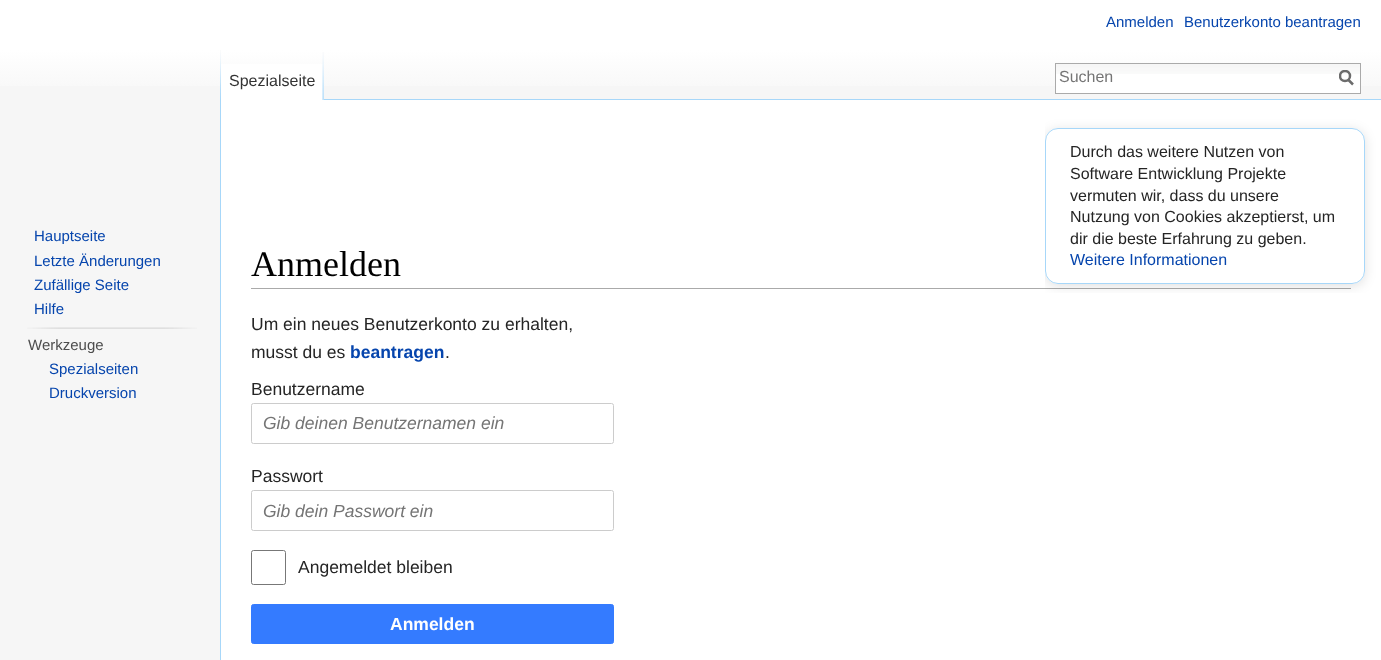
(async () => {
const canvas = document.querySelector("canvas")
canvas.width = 1381
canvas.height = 660
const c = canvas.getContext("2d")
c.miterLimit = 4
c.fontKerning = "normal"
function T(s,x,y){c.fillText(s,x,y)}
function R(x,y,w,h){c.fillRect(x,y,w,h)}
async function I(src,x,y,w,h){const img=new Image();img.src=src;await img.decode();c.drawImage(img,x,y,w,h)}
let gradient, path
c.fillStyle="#f6f6f6"
R(0,0,1381,660)
gradient = c.createLinearGradient(691,0,691,100)
gradient.addColorStop(.5,"#fff")
gradient.addColorStop(1,"#f6f6f6")
c.fillStyle = gradient
R(0,0,1381,86)
c.font="15px Liberation Sans"
c.fillStyle="#0645ad"
T("Anmelden",1106,27)
T("Benutzerkonto beantragen",1184,27)
await I("1.png",220,50,1,49)
c.fillStyle="#fff"
R(221,64,103,36)
await I("2.png",322,52,2,48)
c.font="16px Liberation Sans"
c.fillStyle="#333"
T("Spezialseite",229,86)
c.fillStyle="#fff"
R(1056,74,304,19)
await I("3.png",1056,64,304,10)
c.strokeStyle="#aaa"
c.strokeRect(1055.5,63.5,305,30)
c.fillStyle="#757575"
T("Suchen",1059,82)
path = new Path2D("M1353 84.5l-5-5")
c.strokeStyle="#6c6c6c"
c.lineWidth=2.5
c.stroke(path)
c.save()
c.beginPath()
c.rect(1339,70,15,16)
c.clip()
c.beginPath()
c.arc(1345,76,5,0,7)
c.stroke()
c.restore()
c.font="15px Liberation Sans"
c.fillStyle="#0645ad"
T("Hauptseite",34,241)
T("Letzte Änderungen",34,266)
T("Zufällige Seite",34,290)
T("Hilfe",34,314)
await I("4.png",27,327,170,2)
c.fillStyle="#4d4d4d"
T("Werkzeuge",28,350)
c.fillStyle="#0645ad"
T("Spezialseiten",49,374)
T("Druckversion",49,398)
c.fillStyle="#fff"
R(221,100,1160,560)
c.fillStyle="#a7d7f9"
R(324,99,1057,1)
R(220,99,1,561)
c.fillStyle="#aaa"
R(251,288,1100,1)
c.font="36px Liberation Serif"
c.fillStyle="#000"
T("Anmelden",251,276)
c.save()
c.beginPath()
c.rect(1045,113,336,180)
c.clip()
path = new Path2D("M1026 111h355v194h-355zm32 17h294c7 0 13 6 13 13v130c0 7-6 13-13 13h-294c-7 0-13-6-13-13v-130c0-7 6-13 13-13z")
c.clip(path,"evenodd")
c.fillStyle="#0000001f"
c.filter="blur(6px)"
c.beginPath()
c.roundRect(1045,130,320,156,13)
c.fill()
c.filter="none"
c.restore()
c.fillStyle="#ffffffed"
c.beginPath()
c.roundRect(1045.5,128.5,319,155,12.5)
c.fill()
c.strokeStyle="#a7d7f9"
c.lineWidth=1
c.stroke()
c.font="16px Liberation Sans"
c.fillStyle="#252525"
T("Durch das weitere Nutzen von",1070,157)
T("Software Entwicklung Projekte",1070,179)
T("vermuten wir, dass du unsere",1070,201)
T("Nutzung von Cookies akzeptierst, um",1070,222)
T("dir die beste Erfahrung zu geben.",1070,244)
c.fillStyle="#0645ad"
T("Weitere Informationen",1070,265)
c.font="17.5px Liberation Sans"
c.fillStyle="#252525"
T("Um ein neues Benutzerkonto zu erhalten,",251,330)
T("musst du es",251,358)
c.font="bold 17.5px Liberation Sans"
c.fillStyle="#0645ad"
T("beantragen",350,358)
c.font="17.5px Liberation Sans"
c.fillStyle="#252525"
T(".",445,358)
T("Benutzername",251,395)
c.beginPath()
c.roundRect(251.5,403.5,362,40,2)
c.strokeStyle="#ccc"
c.stroke()
c.font="italic 17.5px Liberation Sans"
c.fillStyle="#757575"
T("Gib deinen Benutzernamen ein",263,429)
c.font="17.5px Liberation Sans"
c.fillStyle="#252525"
T("Passwort",251,482)
c.beginPath()
c.roundRect(251.5,490.5,362,40,2)
c.stroke()
c.font="italic 17.5px Liberation Sans"
c.fillStyle="#757575"
T("Gib dein Passwort ein",263,517)
c.beginPath()
c.roundRect(251.5,550.5,34,34,2)
c.strokeStyle="#777"
c.stroke()
c.font="17.5px Liberation Sans"
c.fillStyle="#252525"
T("Angemeldet bleiben",298,573)
c.fillStyle="#347bff"
c.beginPath()
c.roundRect(251.5,604.5,362,39,2)
c.fill()
c.strokeStyle="#347bff"
c.stroke()
c.font="bold 17.5px Liberation Sans"
c.fillStyle="#fff"
T("Anmelden",390,630)
})()
